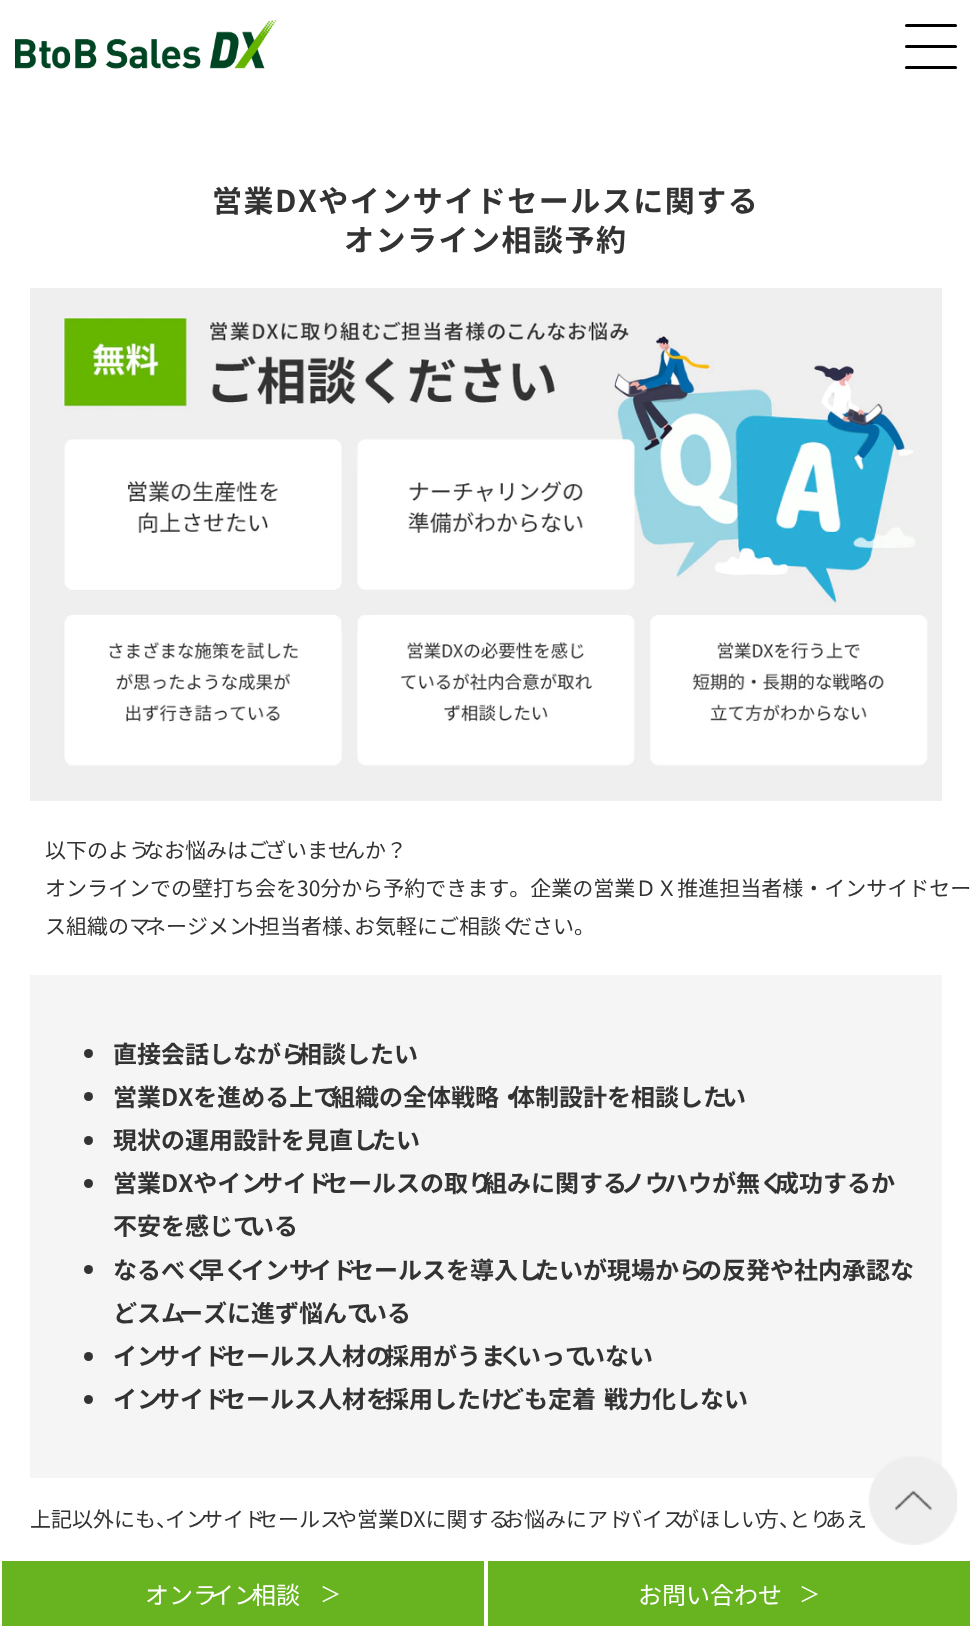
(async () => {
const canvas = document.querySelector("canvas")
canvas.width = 972
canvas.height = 1627
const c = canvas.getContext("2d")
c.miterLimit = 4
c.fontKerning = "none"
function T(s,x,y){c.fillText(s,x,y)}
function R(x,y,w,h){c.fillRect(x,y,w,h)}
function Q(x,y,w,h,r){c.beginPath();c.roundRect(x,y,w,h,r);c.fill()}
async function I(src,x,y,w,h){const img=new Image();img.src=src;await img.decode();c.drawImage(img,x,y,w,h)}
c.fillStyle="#fff"
R(0,0,972,1627)
await I("1.png",15,20,262,49)
c.fillStyle="#000"
Q(905,24,52,3,1.5)
Q(905,45,52,3,1.5)
Q(905,66,52,3,1.5)
c.letterSpacing="1.5px"
c.font="bold 30px Noto Sans JP"
c.fillStyle="#333"
T("営業DXやインサイドセールスに関する",212,212)
T("オンライン相談予約",344,251)
await I("2.png",30,288,912,513)
c.letterSpacing="0px"
c.font="21px Noto Sans JP"
T("以下のよう",45,858)
T("なお悩みはご",143,858)
T("ざいませ",265,858)
T("んか？",344,858)
c.font="21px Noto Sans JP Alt"
T("オンラインでの壁打ち会を30分から予約できます。企業の営業ＤＸ推進担当者様・インサイドセール",45,896)
c.font="21px Noto Sans JP"
T("ス組織のマ",45,934)
T("ネージメン",145,934)
T("ト",243,934)
T("担当者様、",259,934)
T("お気軽にご相談く",354,934)
T("ださい。",511,934)
c.fillStyle="#f5f5f5"
R(30,975,912,503)
c.fillStyle="#333"
c.beginPath()
c.arc(88.5,1053.5,4.5,0,7)
c.fill()
c.font="bold 24px Noto Sans JP"
T("直接会話しながら",113,1063)
T("相談したい",298,1063)
c.beginPath()
c.arc(88.5,1096.5,4.5,0,7)
c.fill()
T("営業DXを進める上で",113,1106)
T("組織の全体戦略・",331,1106)
T("体制設計を相談した",511,1106)
T("い",722,1106)
c.beginPath()
c.arc(88.5,1140.5,4.5,0,7)
c.fill()
T("現状の運用設計を見直し",113,1149)
T("たい",372,1149)
c.beginPath()
c.arc(88.5,1183.5,4.5,0,7)
c.fill()
T("営業DXやイン",113,1192)
T("サイド",259,1192)
T("セールスの取り",324,1192)
T("組みに関する",483,1192)
T("ノウ",621,1192)
T("ハウが無く",664,1192)
T("成功するか",775,1192)
T("不安を感じて",113,1235)
T("いる",250,1235)
c.beginPath()
c.arc(88.5,1269.5,4.5,0,7)
c.fill()
T("なるべく",113,1279)
T("早く",200,1279)
T("インサ",241,1279)
T("イド",308,1279)
T("セールスを導入し",350,1279)
T("たいが現場から",535,1279)
T("の反発や社内承認な",698,1279)
T("どスム",113,1322)
T("ーズに進ず悩んで",179,1322)
T("いる",363,1322)
c.beginPath()
c.arc(88.5,1356.5,4.5,0,7)
c.fill()
T("イン",113,1365)
T("サイド",156,1365)
T("セールス人材の",222,1365)
T("採用がうま",385,1365)
T("く",499,1365)
T("いって",517,1365)
T("いない",581,1365)
c.beginPath()
c.arc(88.5,1399.5,4.5,0,7)
c.fill()
T("イン",113,1408)
T("サイド",156,1408)
T("セールス人材を",222,1408)
T("採用したけ",385,1408)
T("ども定着・",500,1408)
T("戦力化しない",604,1408)
c.font="21px Noto Sans JP"
T("上記以外にも、",30,1527)
T("イン",165,1527)
T("サイド",202,1527)
T("セールス",257,1527)
T("や営業DXに関する",336,1527)
T("お悩みにアド",503,1527)
T("バイス",621,1527)
T("がほしい",678,1527)
T("方、",758,1527)
T("とり",789,1527)
T("あえ",825,1527)
await I("3.png",868,1456,89,89)
c.fillStyle="#68b320"
R(2,1561,482,65)
c.font="24px Noto Sans JP"
c.fillStyle="#fff"
T("オンラ",145,1604)
T("イン",210,1604)
T("相談",252,1604)
c.font="21px Noto Sans JP"
T("＞",320,1602)
c.fillStyle="#68b320"
R(488,1561,482,65)
c.font="24px Noto Sans JP"
c.fillStyle="#fff"
T("お問い合わせ",638,1604)
c.font="21px Noto Sans JP"
T("＞",799,1602)
})()
